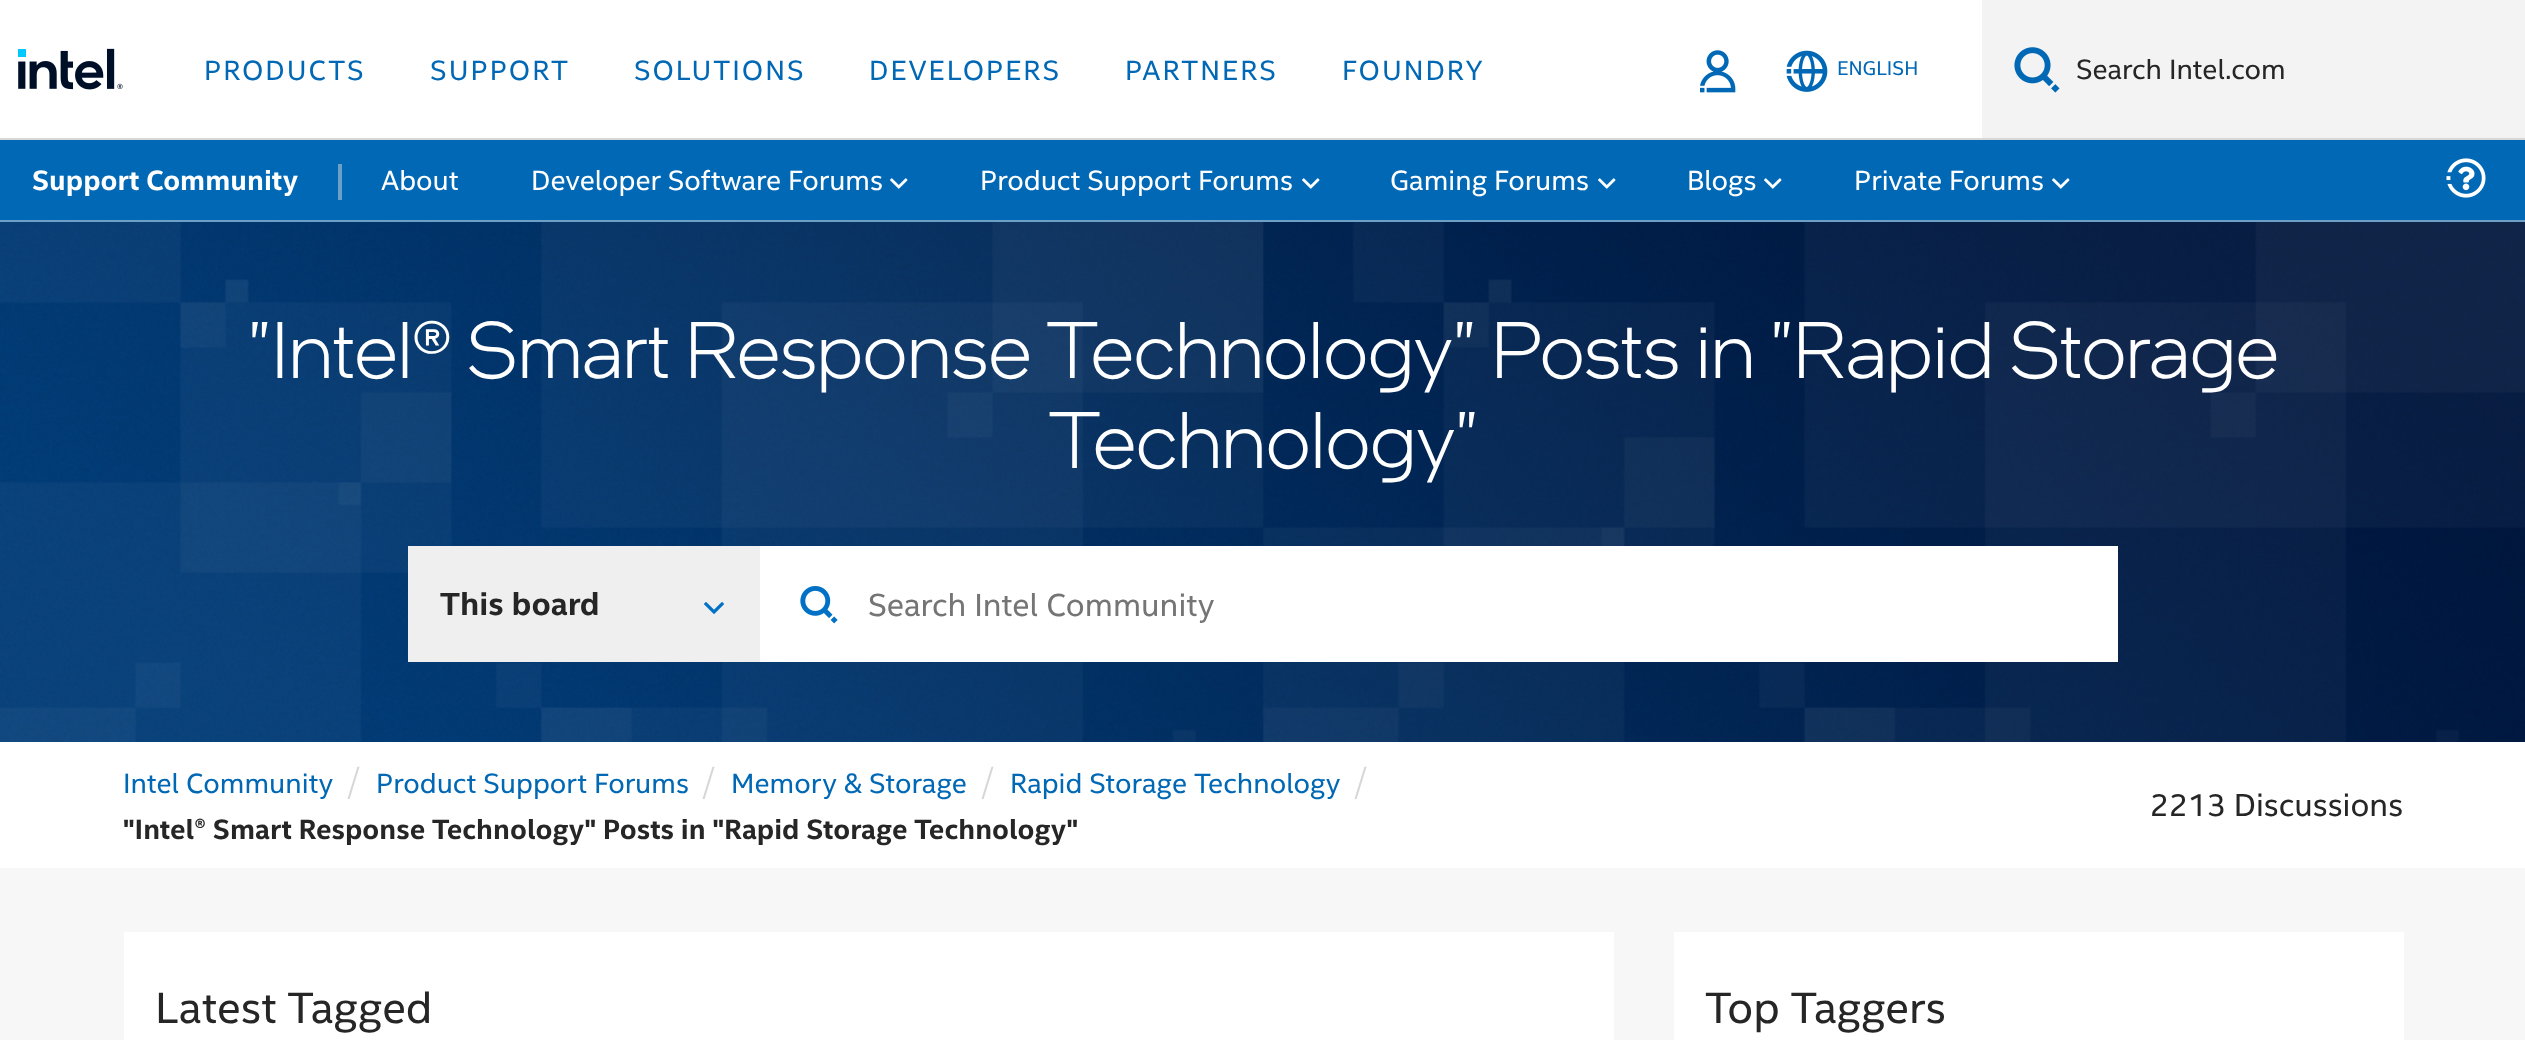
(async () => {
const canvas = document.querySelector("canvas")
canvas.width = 2525
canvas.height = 1040
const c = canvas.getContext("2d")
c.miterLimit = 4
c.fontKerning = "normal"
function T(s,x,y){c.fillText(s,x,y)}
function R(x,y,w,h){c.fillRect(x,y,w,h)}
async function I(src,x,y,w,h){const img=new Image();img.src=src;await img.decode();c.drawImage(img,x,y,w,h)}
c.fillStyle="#f7f7f7"
R(0,0,2525,1040)
c.fillStyle="#fff"
R(0,0,1982,138)
c.fillStyle="#d7d7d7"
R(0,138,2525,2)
await I("1.png",18,48,105,42)
c.letterSpacing="2px"
c.font="28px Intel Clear"
c.fillStyle="#0068b5"
T("PRODUCTS",204,80)
T("SUPPORT",430,80)
T("SOLUTIONS",634,80)
T("DEVELOPERS",869,80)
T("PARTNERS",1125,80)
T("FOUNDRY",1342,80)
await I("2.png",1700,50,36,43)
await I("3.png",1786,50,42,42)
c.letterSpacing="0px"
c.font="20px Intel Clear"
T("ENGLISH",1837,75)
c.fillStyle="#f3f3f3"
R(1982,0,543,138)
await I("4.png",2014,47,46,46)
c.font="28px Intel Clear"
c.fillStyle="#262626"
T("Search Intel.com",2076,79)
c.fillStyle="#fff"
R(0,742,2525,126)
c.fillStyle="#0068b5"
R(0,140,2525,80)
c.font="bold 28px Intel Clear"
c.fillStyle="#fff"
T("Support Community",32,190)
c.fillStyle="#6ca0c6"
R(338,164,4,36)
c.font="28px Intel Clear"
c.fillStyle="#fff"
T("About",381,190)
T("Developer Software Forums",531,190)
await I("5.png",890,178,18,11)
T("Product Support Forums",980,190)
await I("5.png",1302,178,18,11)
T("Gaming Forums",1390,190)
await I("5.png",1598,178,18,11)
T("Blogs",1687,190)
await I("5.png",1764,178,18,11)
T("Private Forums",1854,190)
await I("5.png",2052,178,18,11)
await I("6.png",2446,158,40,40)
await I("7.png",0,222,2525,520)
c.fillStyle="#6ca0c6"
R(0,220,2525,2)
c.font="300 80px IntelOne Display"
c.fillStyle="#fff"
T("\"Intel® Smart Response Technology\" Posts in \"Rapid Storage",248,378)
T("Technology\"",1048,468)
c.fillStyle="#efefef"
R(408,546,352,116)
c.font="bold 32px Intel Clear"
c.fillStyle="#262626"
T("This board",440,615)
await I("8.png",704,602,20,12)
c.fillStyle="#fff"
R(760,546,1358,116)
await I("9.png",800,586,38,38)
c.font="32px Intel Clear"
c.fillStyle="#757575"
T("Search Intel Community",868,616)
c.font="28px Intel Clear"
c.fillStyle="#0068b5"
T("Intel Community",123,793)
c.font="300 36px Intel Clear"
c.fillStyle="#d7d7d7"
T("/",347,793)
c.font="28px Intel Clear"
c.fillStyle="#0068b5"
T("Product Support Forums",376,793)
c.font="300 36px Intel Clear"
c.fillStyle="#d7d7d7"
T("/",702,793)
c.font="28px Intel Clear"
c.fillStyle="#0068b5"
T("Memory & Storage",731,793)
c.font="300 36px Intel Clear"
c.fillStyle="#d7d7d7"
T("/",981,793)
c.font="28px Intel Clear"
c.fillStyle="#0068b5"
T("Rapid Storage Technology",1010,793)
c.font="300 36px Intel Clear"
c.fillStyle="#d7d7d7"
T("/",1354,793)
c.font="bold 28px Intel Clear"
c.fillStyle="#262626"
T("\"Intel® Smart Response Technology\" Posts in \"Rapid Storage Technology\"",123,839)
c.font="32px Intel Clear"
T("2213 Discussions",2150,816)
c.fillStyle="#fff"
R(124,932,1490,108)
c.font="44px Intel Clear"
c.fillStyle="#262626"
T("Latest Tagged",155,1023)
c.fillStyle="#fff"
R(1674,932,730,108)
c.fillStyle="#262626"
T("Top Taggers",1705,1023)
})()
